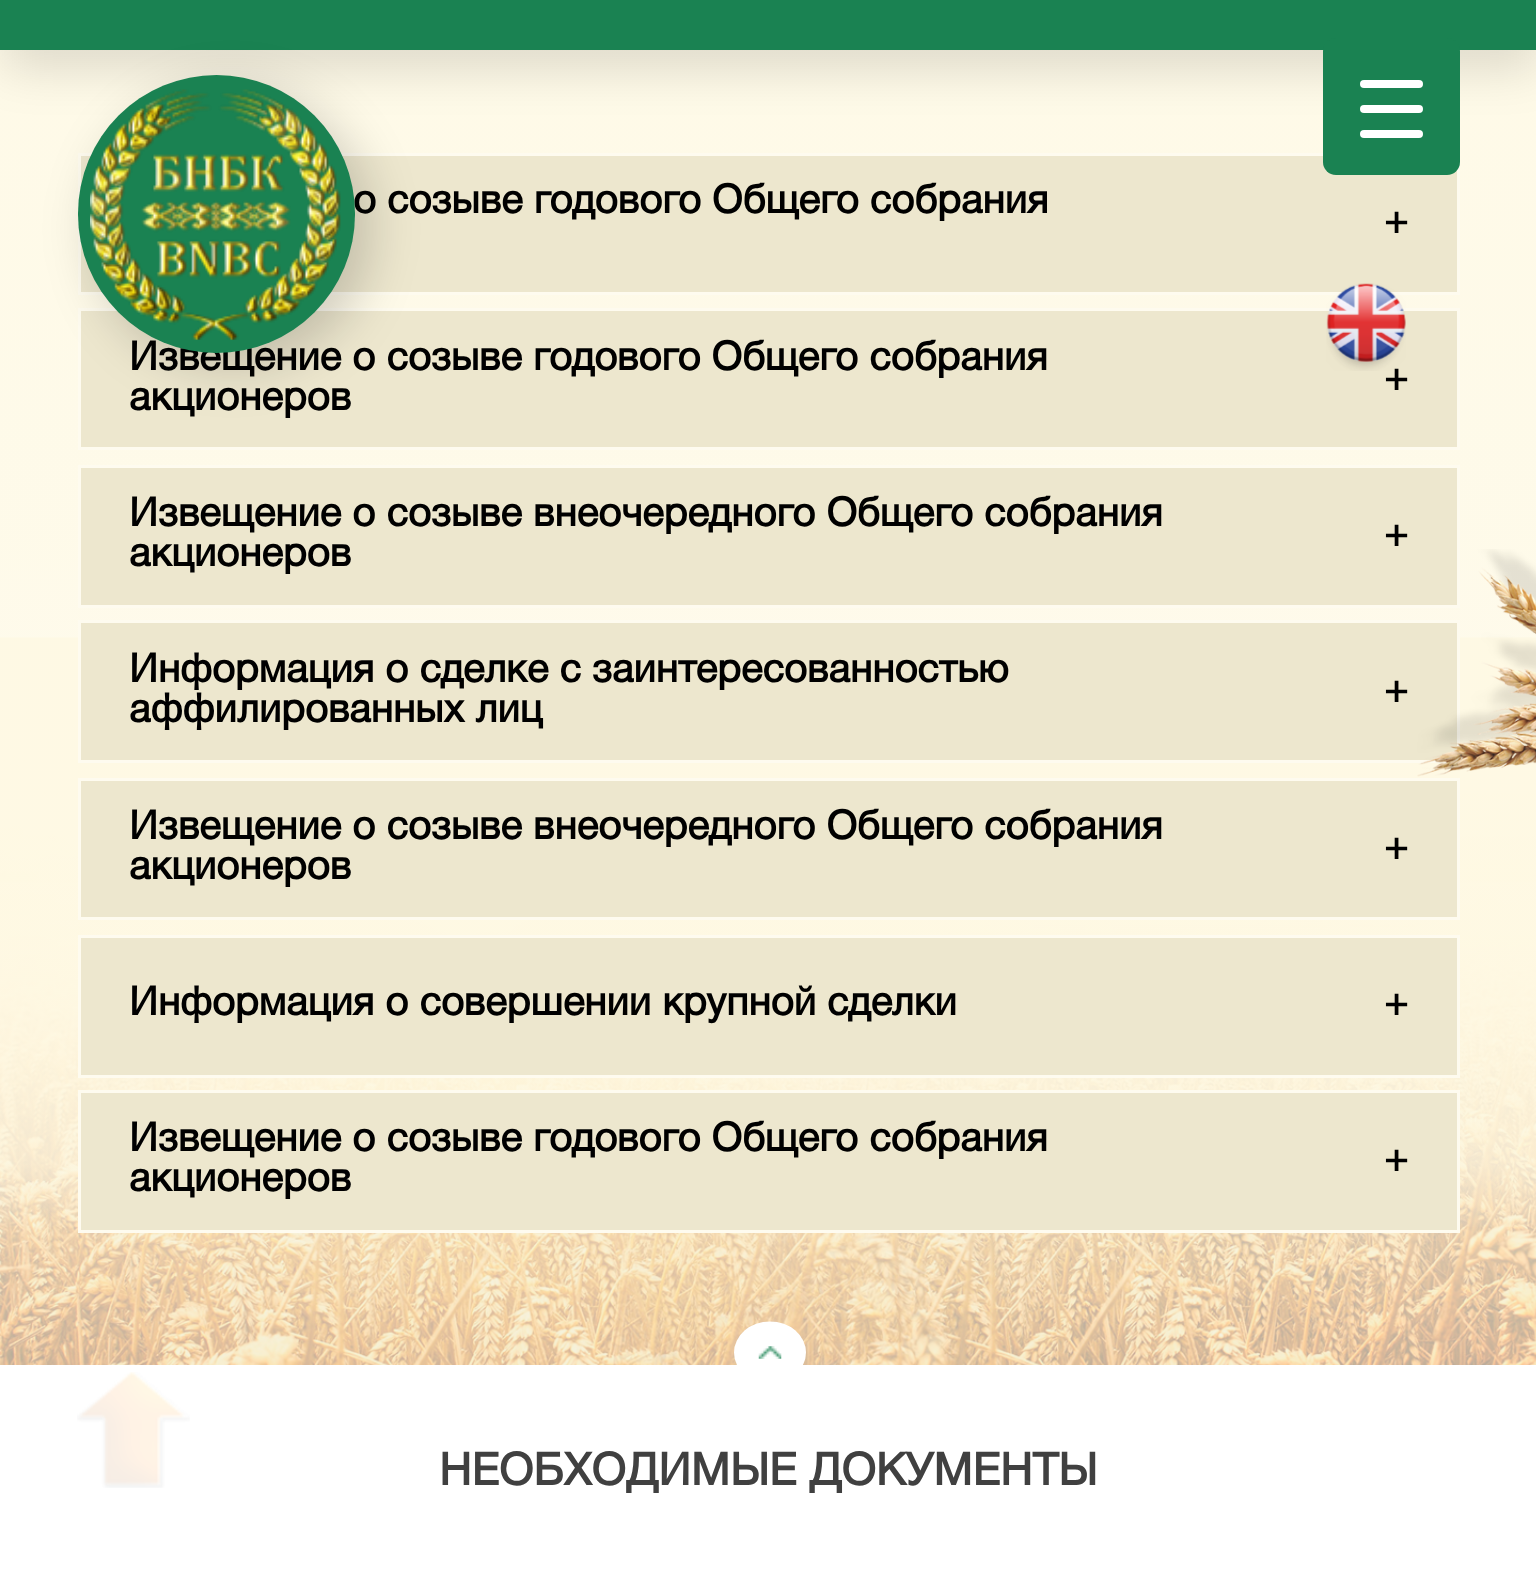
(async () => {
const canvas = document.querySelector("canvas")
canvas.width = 1536
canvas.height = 1582
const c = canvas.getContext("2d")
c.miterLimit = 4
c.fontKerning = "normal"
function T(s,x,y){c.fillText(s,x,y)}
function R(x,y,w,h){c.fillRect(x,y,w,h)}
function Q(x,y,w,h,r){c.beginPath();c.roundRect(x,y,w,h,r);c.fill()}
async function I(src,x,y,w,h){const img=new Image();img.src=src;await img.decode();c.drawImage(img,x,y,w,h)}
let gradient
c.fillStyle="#fff"
R(0,0,1536,1582)
await I("3.png",0,637,1536,728)
gradient = c.createLinearGradient(769,-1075,769,1233)
gradient.addColorStop(0,"#fef9e4")
gradient.addColorStop(.7,"#fef9e4cc")
gradient.addColorStop(.97,"#fef9e480")
gradient.addColorStop(1,"#fef9e400")
c.fillStyle = gradient
R(0,50,1536,1177)
c.fillStyle="#00000026"
c.filter="blur(25px)"
c.beginPath()
c.rect(3,15,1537,50)
c.fill()
c.filter="none"
c.fillStyle="#1a8252"
R(0,0,1536,50)
c.fillStyle="#ede7ce"
c.beginPath()
c.rect(79.5,154.5,1379,139)
c.fill()
c.strokeStyle="#fefbef"
c.lineWidth=3
c.stroke()
c.fillStyle="#1a8252"
Q(1323,38,137,137,13)
c.fillStyle="#fff"
Q(1360,105,63,8,4)
Q(1360,80,63,8,4)
Q(1360,130,63,8,4)
c.fillStyle="#ede7ce"
c.beginPath()
c.rect(79.5,309.5,1379,139)
c.fill()
c.stroke()
c.fillStyle="#0000002e"
c.filter="blur(25px)"
c.beginPath()
c.roundRect(93,90,277,278,138.5)
c.fill()
c.filter="none"
c.font="bold 40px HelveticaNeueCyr"
c.fillStyle="#000"
T("о созыве годового Общего собрания",353,213)
T("Извещение о созыве годового Общего собрания",129,370)
c.fillStyle="#1a8252"
Q(78,75,277,278,138.5)
await I("1.png",90,89,251,251)
c.fillStyle="#000"
T("+",1384,390)
await I("2.png",1326,283,80,88)
T("+",1384,233)
T("акционеров",129,410)
c.fillStyle="#ede7ce"
c.beginPath()
c.rect(79.5,466.5,1379,140)
c.fill()
c.stroke()
c.fillStyle="#000"
T("Извещение о созыве внеочередного Общего собрания",129,526)
T("акционеров",129,566)
T("+",1384,546)
c.fillStyle="#ede7ce"
c.beginPath()
c.rect(79.5,621.5,1379,140)
c.fill()
c.stroke()
c.fillStyle="#000"
T("Информация о сделке с заинтересованностью",129,682)
T("аффилированных лиц",129,722)
T("+",1384,702)
c.fillStyle="#ede7ce"
c.beginPath()
c.rect(79.5,779.5,1379,139)
c.fill()
c.stroke()
c.fillStyle="#000"
T("Извещение о созыве внеочередного Общего собрания",129,839)
T("акционеров",129,879)
T("+",1384,859)
c.fillStyle="#ede7ce"
c.beginPath()
c.rect(79.5,936.5,1379,140)
c.fill()
c.stroke()
c.fillStyle="#000"
T("Информация о совершении крупной сделки",129,1015)
T("+",1384,1015)
c.fillStyle="#ede7ce"
c.beginPath()
c.rect(79.5,1091.5,1379,140)
c.fill()
c.stroke()
c.fillStyle="#000"
T("Извещение о созыве годового Общего собрания",129,1151)
T("акционеров",129,1191)
T("+",1384,1171)
c.fillStyle="#fff"
c.beginPath()
c.ellipse(770,1352.5,36,31,0,0,7)
c.fill()
await I("4.png",758,1346,24,13)
c.font="bold 45px HelveticaNeueCyr"
c.fillStyle="#404040"
T("НЕОБХОДИМЫЕ ДОКУМЕНТЫ",439,1485)
await I("5.png",1417,549,119,228)
await I("6.png",77,1372,113,116)
})()
